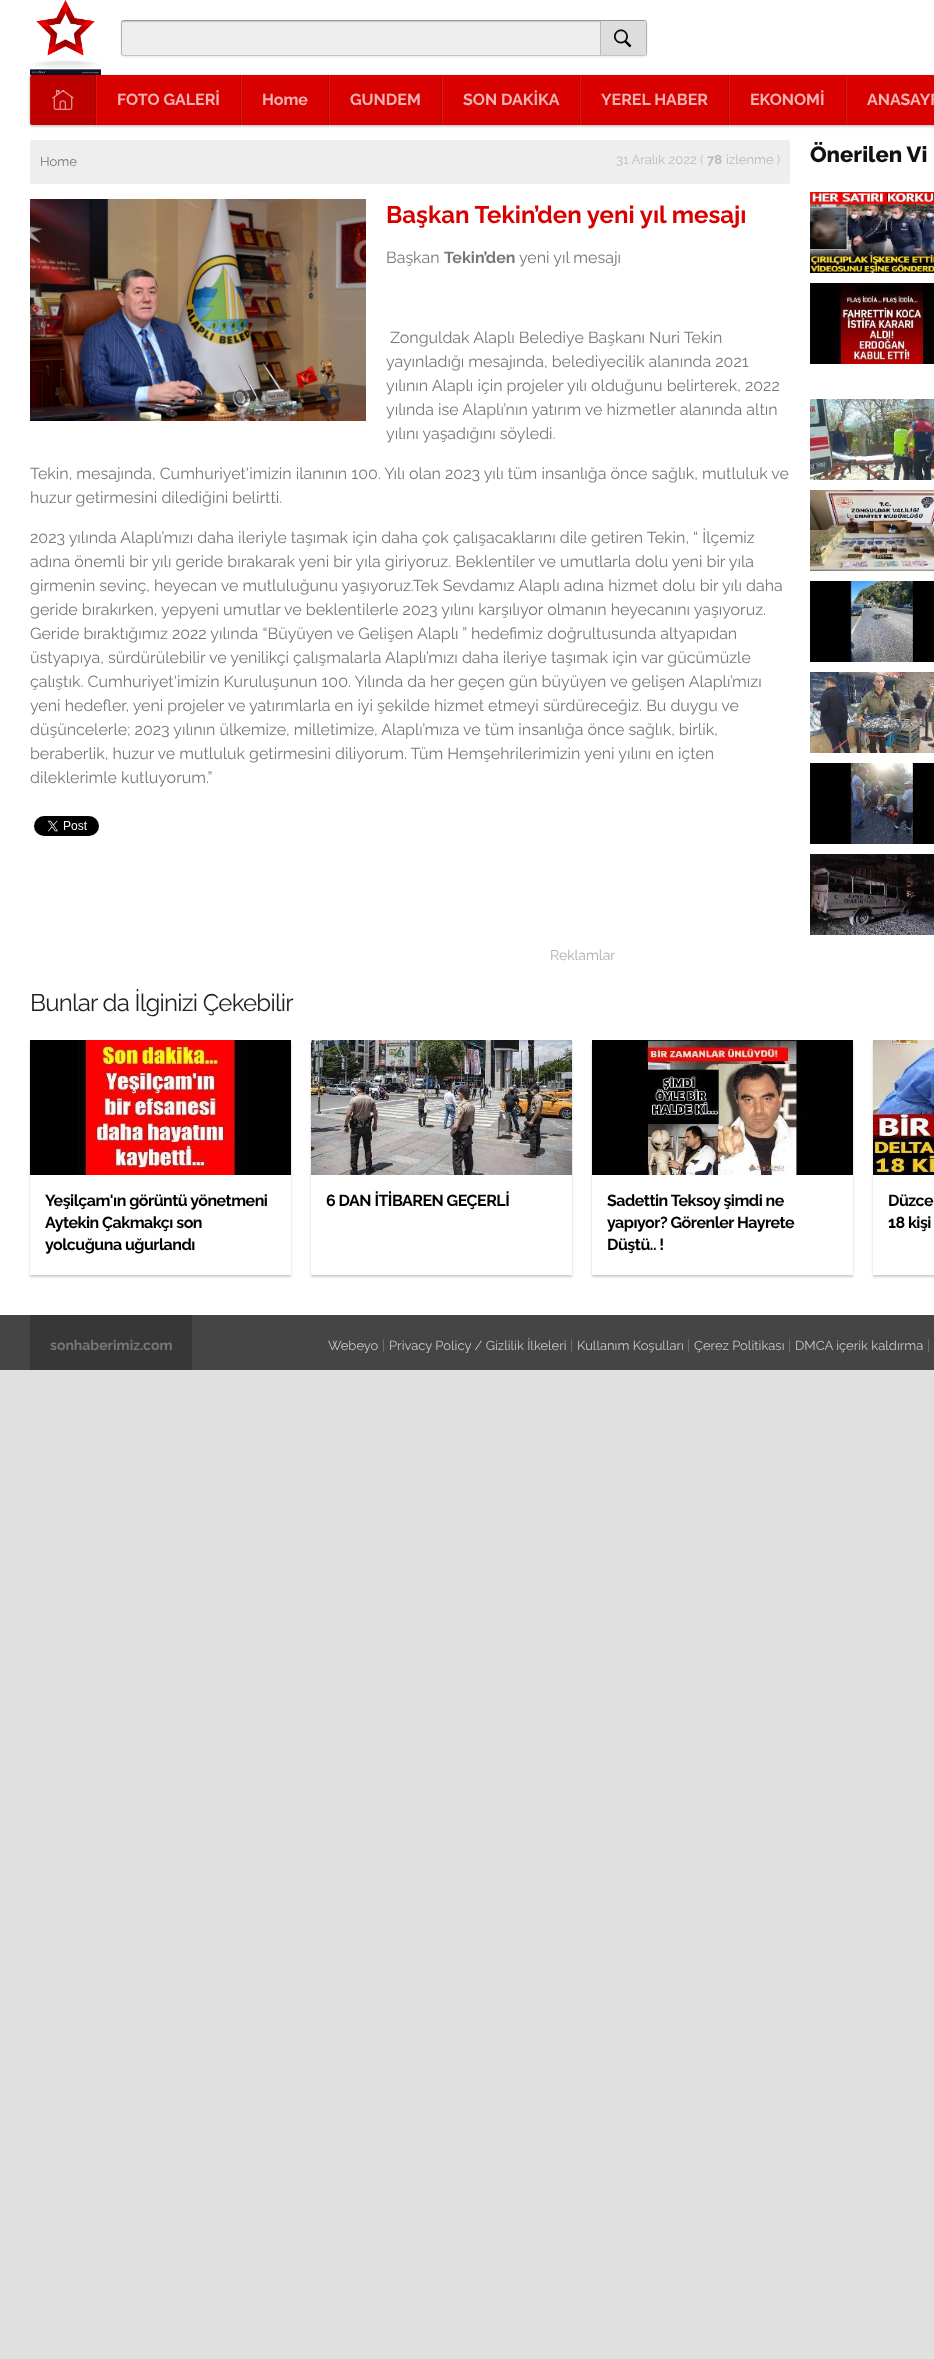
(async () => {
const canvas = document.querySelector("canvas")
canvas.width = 934
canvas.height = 2359
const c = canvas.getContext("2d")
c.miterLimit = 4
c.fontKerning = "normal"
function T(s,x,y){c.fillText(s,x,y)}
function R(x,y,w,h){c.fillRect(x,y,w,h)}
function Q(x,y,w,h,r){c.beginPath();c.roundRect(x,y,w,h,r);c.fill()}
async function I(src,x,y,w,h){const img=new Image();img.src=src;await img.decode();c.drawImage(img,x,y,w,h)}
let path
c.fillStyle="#e0e0e0"
R(0,0,934,2359)
c.fillStyle="#fff"
R(0,0,934,1315)
await I("1.png",30,0,71,75)
c.fillStyle="#0000001a"
c.filter="blur(1px)"
c.beginPath()
c.roundRect(121,21,526,36,3)
c.fill()
c.filter="none"
await I("2.png",121,20,526,36)
path = new Path2D("M122 21l2-.5h520l2 .5")
c.strokeStyle="#979797"
c.stroke(path)
path = new Path2D("M646 21c0 .5 .5 1.5 .5 2v30c0 .5-.5 1.5-.5 2")
c.strokeStyle="#b2b2b2"
c.stroke(path)
path = new Path2D("M646 55l-2 .5h-520l-2-.5")
c.strokeStyle="#c4c4c4"
c.stroke(path)
path = new Path2D("M122 55c0-.5-.5-1.5-.5-2v-30c0-.5 .5-1.5 .5-2")
c.strokeStyle="#b2b2b2"
c.stroke(path)
c.fillStyle="#ddd"
R(601,21,45,34)
await I("3.png",614,29,18,19)
c.fillStyle="#bbb"
R(600,21,1,34)
c.fillStyle="#0000004d"
c.filter="blur(1.5px)"
c.beginPath()
c.roundRect(30,76,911,50,2)
c.fill()
c.filter="none"
c.fillStyle="#d90000"
Q(30,75,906,50,2)
c.fillStyle="#0000001f"
c.beginPath()
c.roundRect(30,75,66,50,[2,0,0,2])
c.fill()
await I("4.png",52,90,22,20)
c.fillStyle="#a40000"
R(95,75,1,50)
c.fillStyle="#ffffff17"
R(30,75,1,50)
c.fillStyle="#b00"
R(240,75,1,50)
c.fillStyle="#dc1717"
R(96,75,1,50)
c.font="bold 16px Raleway"
c.fillStyle="#f4b3b3"
T("FOTO GALERİ",117,105)
c.fillStyle="#b00"
R(328,75,1,50)
c.fillStyle="#dc1717"
R(241,75,1,50)
c.fillStyle="#f4b3b3"
T("Home",262,105)
c.fillStyle="#b00"
R(441,75,1,50)
c.fillStyle="#dc1717"
R(329,75,1,50)
c.fillStyle="#f4b3b3"
T("GUNDEM",350,105)
c.fillStyle="#b00"
R(579,75,1,50)
c.fillStyle="#dc1717"
R(442,75,1,50)
c.fillStyle="#f4b3b3"
T("SON DAKİKA",463,105)
c.fillStyle="#b00"
R(728,75,1,50)
c.fillStyle="#dc1717"
R(580,75,1,50)
c.fillStyle="#f4b3b3"
T("YEREL HABER",601,105)
c.fillStyle="#b00"
R(845,75,1,50)
c.fillStyle="#dc1717"
R(729,75,1,50)
c.fillStyle="#f4b3b3"
T("EKONOMİ",750,105)
c.fillStyle="#dc1717"
R(846,75,1,50)
c.fillStyle="#f4b3b3"
T("ANASAYF",867,105)
c.fillStyle="#eee"
Q(30,140,760,44,2)
c.font="13px Raleway"
c.fillStyle="#777"
T("Home",40,166)
c.fillStyle="#bbb"
T("31 Aralık 2022 (",616,164)
c.font="bold 13px Raleway"
T("78",707,164)
c.font="13px Raleway"
T("izlenme )",726,164)
await I("5.png",30,199,336,222)
c.font="bold 24px Raleway"
c.fillStyle="#d90000"
T("Başkan Tekin’den yeni yıl mesajı",386,223)
c.font="16px Raleway"
c.fillStyle="#777"
T("Başkan",386,263)
c.font="bold 16px Raleway"
T("Tekin’den",444,263)
c.font="16px Raleway"
T("yeni yıl mesajı",519,263)
T("Zonguldak Alaplı Belediye Başkanı Nuri Tekin",390,343)
T("yayınladığı mesajında, belediyecilik alanında 2021",386,367)
T("yılının Alaplı için projeler yılı olduğunu belirterek, 2022",386,391)
T("yılında ise Alaplı’nın yatırım ve hizmetler alanında altın",386,415)
T("yılını yaşadığını söyledi.",386,439)
T("Tekin, mesajında, Cumhuriyet'imizin ilanının 100. Yılı olan 2023 yılı tüm insanlığa önce sağlık, mutluluk ve",30,479)
T("huzur getirmesini dilediğini belirtti.",30,503)
T("2023 yılında Alaplı’mızı daha ileriyle taşımak için daha çok çalışacaklarını dile getiren Tekin, “ İlçemiz",30,543)
T("adına önemli bir yılı geride bırakarak yeni bir yıla giriyoruz. Beklentiler ve umutlarla dolu yeni bir yıla",30,567)
T("girmenin sevinç, heyecan ve mutluluğunu yaşıyoruz.Tek Sevdamız Alaplı adına hizmet dolu bir yılı daha",30,591)
T("geride bırakırken, yepyeni umutlar ve beklentilerle 2023 yılını karşılıyor olmanın heyecanını yaşıyoruz.",30,615)
T("Geride bıraktığımız 2022 yılında “Büyüyen ve Gelişen Alaplı ” hedefimiz doğrultusunda altyapıdan",30,639)
T("üstyapıya, sürdürülebilir ve yenilikçi çalışmalarla Alaplı’mızı daha ileriye taşımak için var gücümüzle",30,663)
T("çalıştık. Cumhuriyet'imizin Kuruluşunun 100. Yılında da her geçen gün büyüyen ve gelişen Alaplı’mızı",30,687)
T("yeni hedefler, yeni projeler ve yatırımlarla en iyi şekilde hizmet etmeyi sürdüreceğiz. Bu duygu ve",30,711)
T("düşüncelerle; 2023 yılının ülkemize, milletimize, Alaplı’mıza ve tüm insanlığa önce sağlık, birlik,",30,735)
T("beraberlik, huzur ve mutluluk getirmesini diliyorum. Tüm Hemşehrilerimizin yeni yılını en içten",30,759)
T("dileklerimle kutluyorum.”",30,783)
await I("6.png",34,816,65,20)
c.font="800 22px Raleway"
c.fillStyle="#111"
T("Önerilen Vi",810,162)
await I("7.png",810,192,124,81)
await I("8.png",810,283,124,81)
await I("9.png",810,399,124,81)
await I("10.png",810,490,124,81)
await I("11.png",810,581,124,81)
await I("12.png",810,672,124,81)
await I("13.png",810,763,124,81)
await I("14.png",810,854,124,81)
c.font="14px Raleway"
c.fillStyle="#adadad"
T("Reklamlar",550,960)
c.letterSpacing="-0.75px"
c.font="24px Raleway"
c.fillStyle="#222"
T("Bunlar da İlginizi Çekebilir",30,1011)
c.save()
path = new Path2D("M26 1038h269v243h-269zm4 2h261v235h-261z")
c.clip(path,"evenodd")
c.fillStyle="#00000033"
c.filter="blur(1px)"
c.beginPath()
c.rect(30,1042,261,235)
c.fill()
c.filter="none"
c.restore()
await I("15.png",30,1040,261,135)
c.letterSpacing="-0.5px"
c.font="bold 16px Raleway"
c.fillStyle="#000"
T("Yeşilçam'ın görüntü yönetmeni",45,1206)
T("Aytekin Çakmakçı son",45,1228)
T("yolcuğuna uğurlandı",45,1250)
c.save()
path = new Path2D("M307 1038h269v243h-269zm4 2h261v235h-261z")
c.clip(path,"evenodd")
c.fillStyle="#00000033"
c.filter="blur(1px)"
c.beginPath()
c.rect(311,1042,261,235)
c.fill()
c.filter="none"
c.restore()
await I("16.png",311,1040,261,135)
T("6 DAN İTİBAREN GEÇERLİ",326,1206)
c.save()
path = new Path2D("M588 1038h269v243h-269zm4 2h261v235h-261z")
c.clip(path,"evenodd")
c.fillStyle="#00000033"
c.filter="blur(1px)"
c.beginPath()
c.rect(592,1042,261,235)
c.fill()
c.filter="none"
c.restore()
await I("17.png",592,1040,261,135)
T("Sadettin Teksoy şimdi ne",607,1206)
T("yapıyor? Görenler Hayrete",607,1228)
T("Düştü.. !",607,1250)
c.save()
path = new Path2D("M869 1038h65v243h-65zm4 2h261v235h-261z")
c.clip(path,"evenodd")
c.fillStyle="#00000033"
c.filter="blur(1px)"
c.beginPath()
c.rect(873,1042,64,235)
c.fill()
c.filter="none"
c.restore()
await I("18.png",873,1040,61,135)
T("Düzce",888,1206)
T("18 kişi",888,1228)
c.fillStyle="#454545"
R(0,1315,934,55)
c.fillStyle="#373737"
R(30,1315,162,55)
c.letterSpacing="0px"
c.font="bold 14px Raleway"
c.fillStyle="#777"
T("sonhaberimiz.com",50,1350)
c.font="13px Raleway"
c.fillStyle="#c7c7c7"
T("Webeyo",328,1350)
c.font="14px Raleway"
c.fillStyle="#777"
T("|",382,1350)
c.font="13px Raleway"
c.fillStyle="#c7c7c7"
T("Privacy Policy / Gizlilik İlkeleri",389,1350)
c.font="14px Raleway"
c.fillStyle="#777"
T("|",570,1350)
c.font="13px Raleway"
c.fillStyle="#c7c7c7"
T("Kullanım Koşulları",577,1350)
c.font="14px Raleway"
c.fillStyle="#777"
T("|",687,1350)
c.font="13px Raleway"
c.fillStyle="#c7c7c7"
T("Çerez Politikası",694,1350)
c.font="14px Raleway"
c.fillStyle="#777"
T("|",788,1350)
c.font="13px Raleway"
c.fillStyle="#c7c7c7"
T("DMCA içerik kaldırma",795,1350)
c.font="14px Raleway"
c.fillStyle="#777"
T("|",927,1350)
})()
